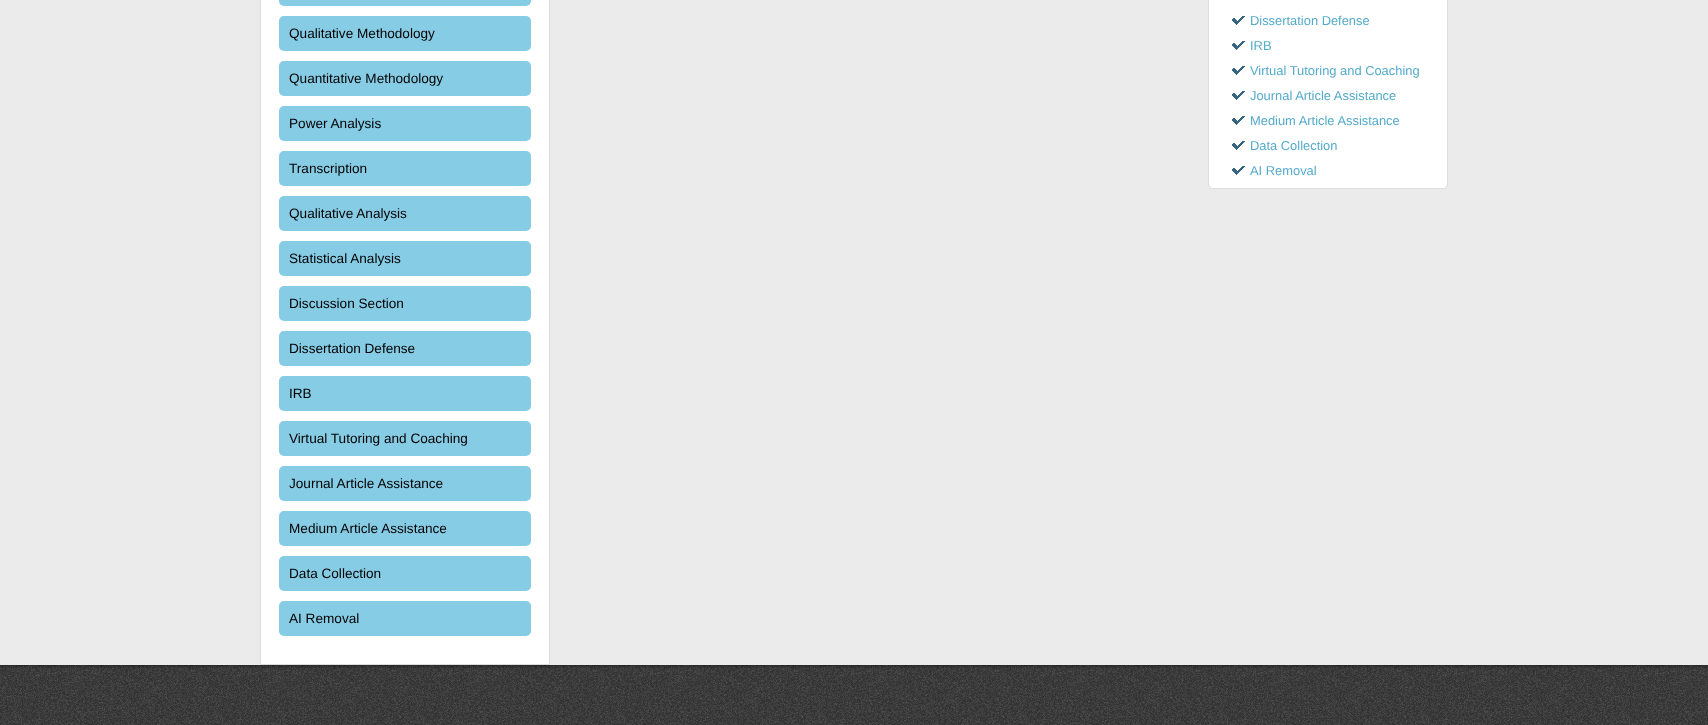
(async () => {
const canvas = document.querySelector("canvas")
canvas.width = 1708
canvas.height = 725
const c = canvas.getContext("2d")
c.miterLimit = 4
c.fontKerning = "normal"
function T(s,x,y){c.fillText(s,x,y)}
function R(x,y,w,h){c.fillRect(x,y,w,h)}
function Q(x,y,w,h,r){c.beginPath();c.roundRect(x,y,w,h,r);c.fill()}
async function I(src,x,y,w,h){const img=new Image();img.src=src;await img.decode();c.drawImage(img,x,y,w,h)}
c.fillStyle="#ebebeb"
R(0,0,1708,725)
c.fillStyle="#fff"
c.beginPath()
c.rect(260.5,-.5,289,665)
c.fill()
c.strokeStyle="#ddd"
c.stroke()
c.fillStyle="#87cce5"
Q(279,-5,252,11,5)
Q(279,16,252,35,5)
c.font="13.6px Liberation Sans"
c.fillStyle="#000"
T("Qualitative Methodology",289,38)
c.fillStyle="#87cce5"
Q(279,61,252,35,5)
c.fillStyle="#000"
T("Quantitative Methodology",289,83)
c.fillStyle="#87cce5"
Q(279,106,252,35,5)
c.fillStyle="#000"
T("Power Analysis",289,128)
c.fillStyle="#87cce5"
Q(279,151,252,35,5)
c.fillStyle="#000"
T("Transcription",289,173)
c.fillStyle="#87cce5"
Q(279,196,252,35,5)
c.fillStyle="#000"
T("Qualitative Analysis",289,218)
c.fillStyle="#87cce5"
Q(279,241,252,35,5)
c.fillStyle="#000"
T("Statistical Analysis",289,263)
c.fillStyle="#87cce5"
Q(279,286,252,35,5)
c.fillStyle="#000"
T("Discussion Section",289,308)
c.fillStyle="#87cce5"
Q(279,331,252,35,5)
c.fillStyle="#000"
T("Dissertation Defense",289,353)
c.fillStyle="#87cce5"
Q(279,376,252,35,5)
c.fillStyle="#000"
T("IRB",289,398)
c.fillStyle="#87cce5"
Q(279,421,252,35,5)
c.fillStyle="#000"
T("Virtual Tutoring and Coaching",289,443)
c.fillStyle="#87cce5"
Q(279,466,252,35,5)
c.fillStyle="#000"
T("Journal Article Assistance",289,488)
c.fillStyle="#87cce5"
Q(279,511,252,35,5)
c.fillStyle="#000"
T("Medium Article Assistance",289,533)
c.fillStyle="#87cce5"
Q(279,556,252,35,5)
c.fillStyle="#000"
T("Data Collection",289,578)
c.fillStyle="#87cce5"
Q(279,601,252,35,5)
c.fillStyle="#000"
T("AI Removal",289,623)
c.fillStyle="#fff"
c.beginPath()
c.roundRect(1208.5,-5.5,239,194,4.5)
c.fill()
c.stroke()
await I("1.png",1232,16,13,9)
c.font="12.9px Liberation Sans"
c.fillStyle="#54aacb"
T("Dissertation Defense",1250,25)
await I("1.png",1232,41,13,9)
T("IRB",1250,50)
await I("1.png",1232,66,13,9)
T("Virtual Tutoring and Coaching",1250,75)
await I("1.png",1232,91,13,9)
T("Journal Article Assistance",1250,100)
await I("1.png",1232,116,13,9)
T("Medium Article Assistance",1250,125)
await I("1.png",1232,141,13,9)
T("Data Collection",1250,150)
await I("1.png",1232,166,13,9)
T("AI Removal",1250,175)
await I("2.png",0,665,1708,60)
})()
